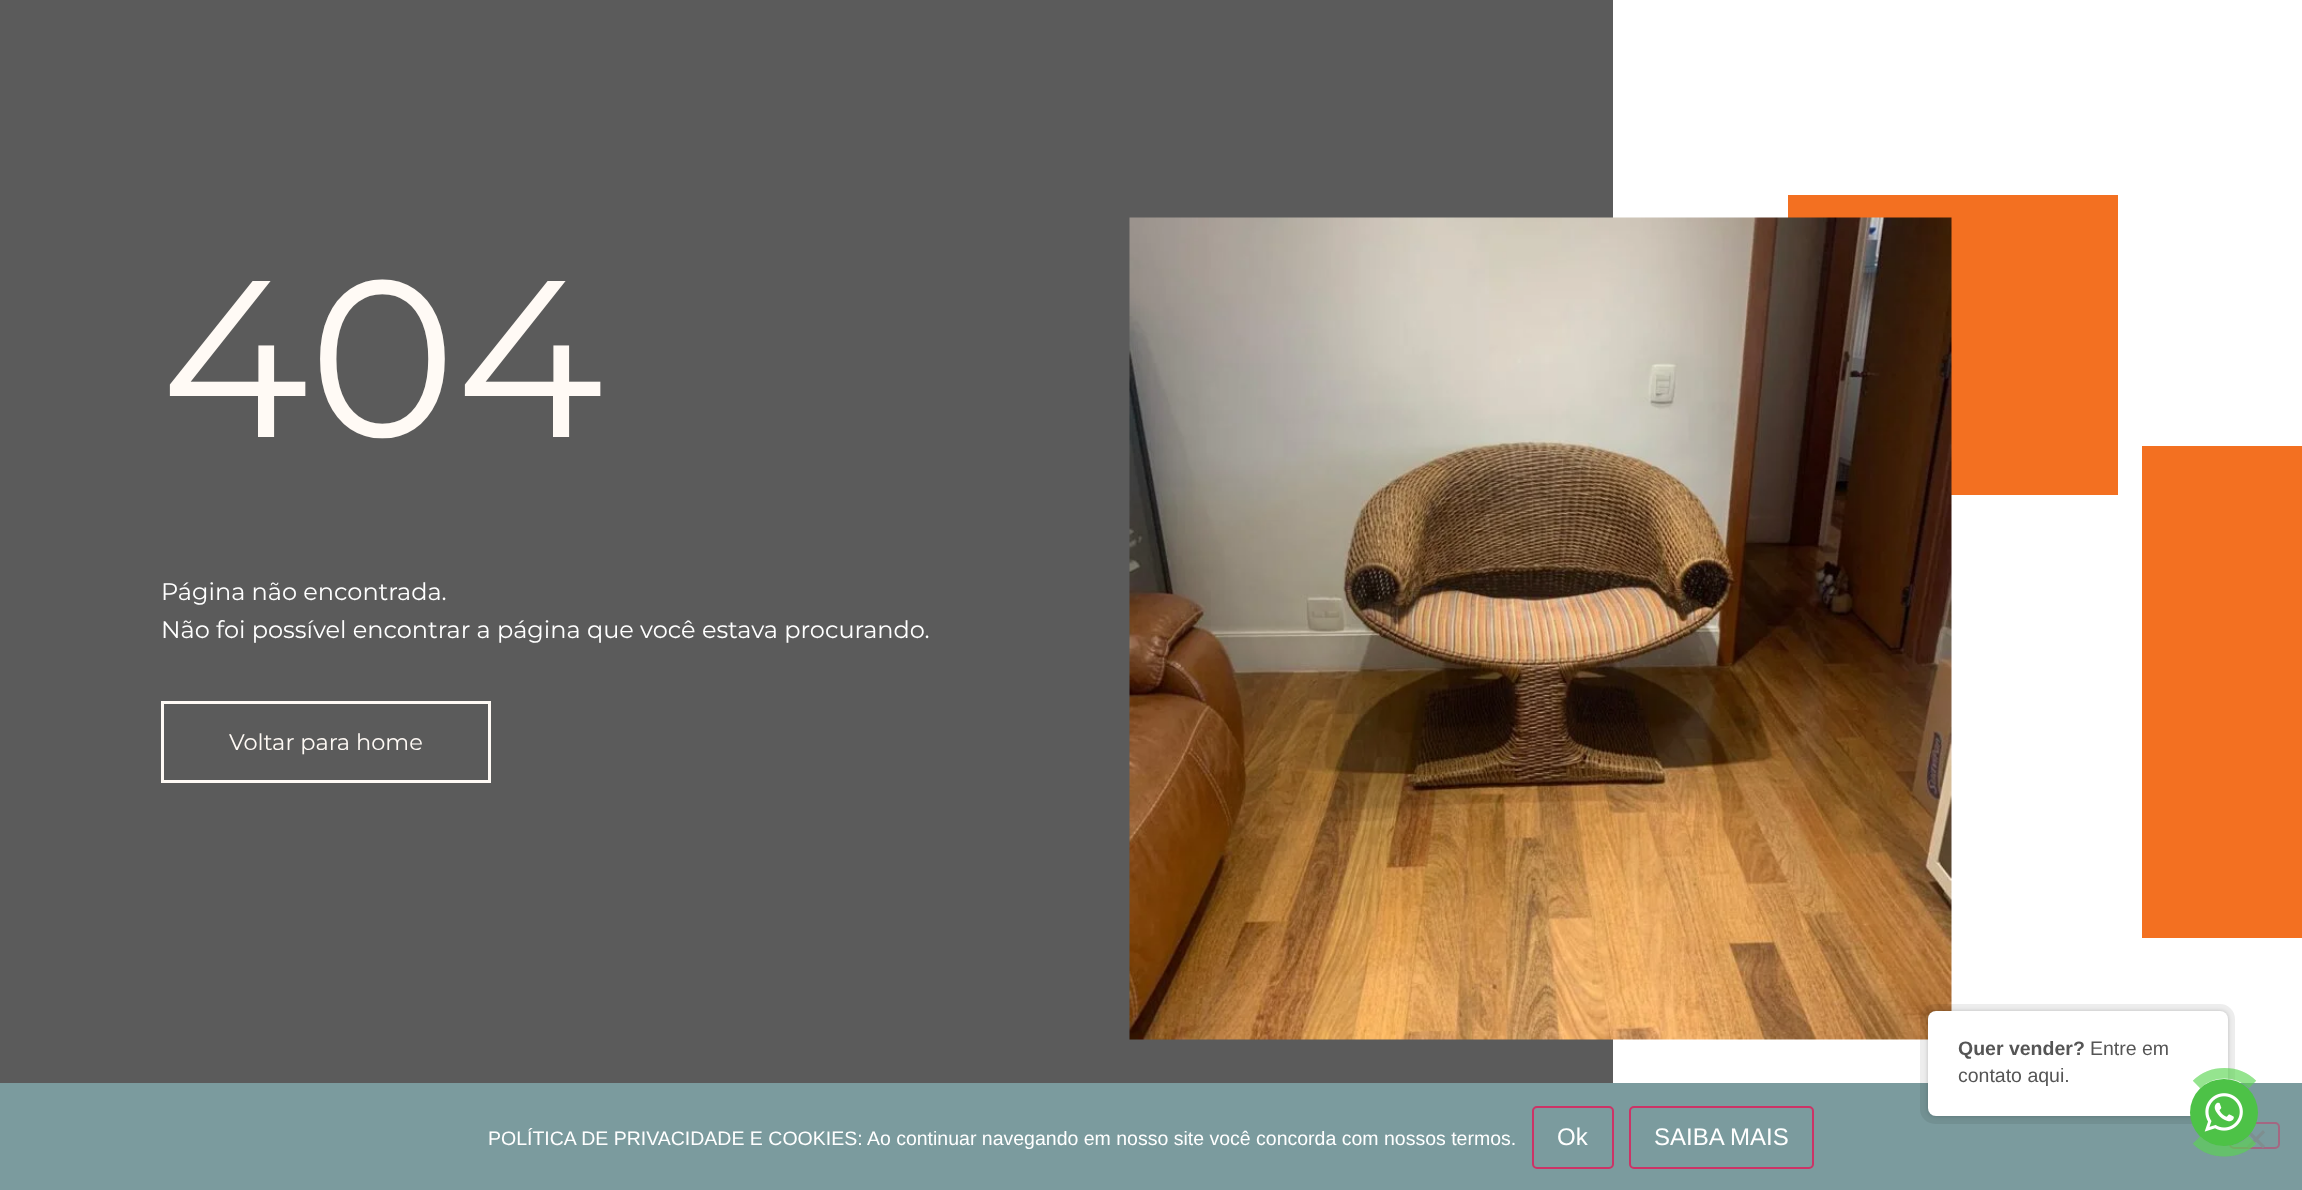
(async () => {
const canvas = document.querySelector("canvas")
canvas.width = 2302
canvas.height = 1190
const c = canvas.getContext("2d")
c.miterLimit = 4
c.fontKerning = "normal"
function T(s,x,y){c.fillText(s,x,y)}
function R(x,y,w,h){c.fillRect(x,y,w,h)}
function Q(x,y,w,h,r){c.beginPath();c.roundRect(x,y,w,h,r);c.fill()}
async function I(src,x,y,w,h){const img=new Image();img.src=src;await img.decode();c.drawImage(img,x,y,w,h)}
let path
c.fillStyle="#fff"
R(0,0,2302,1190)
c.fillStyle="#5b5b5b"
R(0,0,1613,1083)
c.font="223px Montserrat"
c.fillStyle="#fffaf5"
T("404",161,437)
c.font="24px Montserrat"
c.fillStyle="#fff"
T("Página não encontrada.",161,600)
T("Não foi possível encontrar a página que você estava procurando.",161,638)
c.strokeStyle="#fffaf5"
c.lineWidth=3
c.strokeRect(162.5,702.5,327,79)
c.font="22.5px Montserrat"
c.fillStyle="#fffaf5"
T("Voltar para home",229,750)
c.fillStyle="#f37021"
R(1788,195,330,300)
await I("1.png",1129,217,823,823)
R(2142,446,160,492)
c.fillStyle="#7b9b9e"
R(0,1083,2302,107)
c.beginPath()
c.roundRect(2230,1123,49,25,4)
c.strokeStyle="#a46782"
c.lineWidth=2
c.stroke()
c.beginPath()
c.roundRect(1924,1008,307,112,11)
c.strokeStyle="#00000012"
c.lineWidth=8
c.stroke()
c.fillStyle="#00000033"
c.filter="blur(2px)"
c.beginPath()
c.roundRect(1928,1011,300,105,8)
c.fill()
c.filter="none"
c.fillStyle="#fff"
Q(1928,1011,300,105,8)
c.font="bold 19.5px Liberation Sans"
c.fillStyle="#555"
T("Quer vender?",1958,1055)
c.font="19.5px Liberation Sans"
T("Entre em",2090,1055)
T("contato aqui.",1958,1082)
c.fillStyle="#7e8e8f"
path = new Path2D("M2263 1130l2 2.5l-16 16l-2-2.5z")
c.fill(path)
path = new Path2D("M2247 1132.5l2-2.5l16 16l-2 2.5z")
c.fill(path)
c.fillStyle="#4dc247"
Q(2190,1079,68,67,33.5)
path = new Path2D("M2196.5 1084.5c15-15 41-15 56 0")
c.strokeStyle="#59d45166"
c.lineWidth=10.5
c.stroke(path)
path = new Path2D("M2252.5 1140c-15 15-41 15-56 0")
c.stroke(path)
path = new Path2D("M2196.5 1084.5c15-15 41-15 56 0")
c.stroke(path)
path = new Path2D("M2252.5 1140c-15 15-41 15-56 0")
c.stroke(path)
await I("2.png",2204,1093,39,39)
c.fillStyle="#fff"
T("POLÍTICA DE PRIVACIDADE E COOKIES: Ao continuar navegando em nosso site você concorda com nossos termos.",488,1145)
c.beginPath()
c.roundRect(1533,1107,80,61,4)
c.strokeStyle="#c36"
c.lineWidth=2
c.stroke()
c.font="24px Liberation Sans"
T("Ok",1557,1145)
c.beginPath()
c.roundRect(1630,1107,183,61,4)
c.stroke()
T("SAIBA MAIS",1654,1145)
})()
